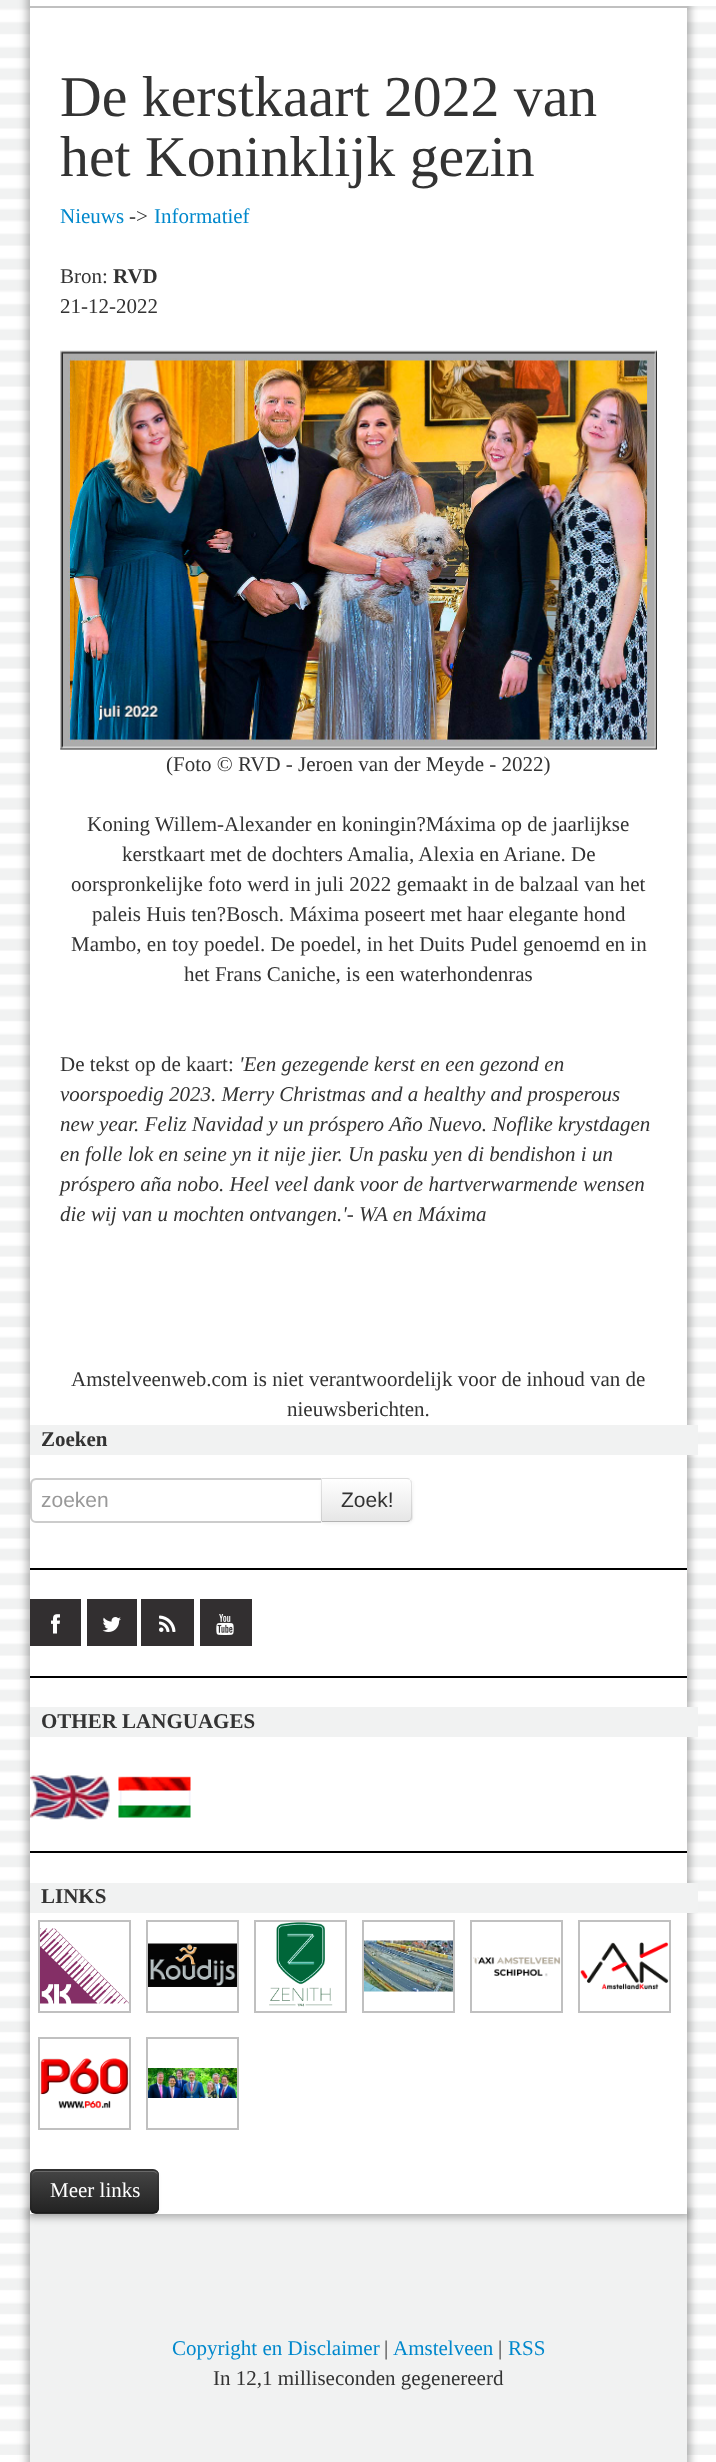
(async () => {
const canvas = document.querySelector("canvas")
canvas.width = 716
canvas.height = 2462
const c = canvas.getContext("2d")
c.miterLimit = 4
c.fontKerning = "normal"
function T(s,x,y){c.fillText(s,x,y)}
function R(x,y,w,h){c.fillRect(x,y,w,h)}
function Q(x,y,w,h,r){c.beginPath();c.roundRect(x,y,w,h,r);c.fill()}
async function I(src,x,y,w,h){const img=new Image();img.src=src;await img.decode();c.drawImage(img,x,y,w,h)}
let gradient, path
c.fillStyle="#fff"
R(0,0,716,2462)
await I("1.png",0,0,716,2455)
c.fillStyle="#0000004d"
c.filter="blur(4px)"
c.beginPath()
c.rect(27,2211,663,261)
c.fill()
c.filter="none"
c.fillStyle="#f1f2f2"
R(30,2214,657,248)
c.fillStyle="#0000004d"
c.filter="blur(4px)"
c.beginPath()
c.rect(27,-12,663,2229)
c.fill()
c.filter="none"
c.fillStyle="#fff"
R(30,8,657,2206)
c.fillStyle="#c0c0c0"
R(30,6,657,2)
c.fillStyle="#fff"
R(30,0,686,6)
c.font="57.75px Liberation Serif"
c.fillStyle="#333"
T("De kerstkaart 2022 van",60,116)
T("het Koninklijk gezin",60,176)
c.font="21px Liberation Serif"
c.fillStyle="#08c"
T("Nieuws",60,223)
c.fillStyle="#333"
T("->",129,223)
c.fillStyle="#08c"
T("Informatief",154,223)
c.fillStyle="#333"
T("Bron:",60,283)
c.font="bold 21px Liberation Serif"
T("RVD",113,283)
c.font="21px Liberation Serif"
T("21-12-2022",60,313)
await I("2.png",60,350,597,400)
T("(Foto © RVD - Jeroen van der Meyde - 2022)",166,771)
T("Koning Willem-Alexander en koningin?Máxima op de jaarlijkse",87,831)
T("kerstkaart met de dochters Amalia, Alexia en Ariane. De",122,861)
T("oorspronkelijke foto werd in juli 2022 gemaakt in de balzaal van het",71,891)
T("paleis Huis ten?Bosch. Máxima poseert met haar elegante hond",92,921)
T("Mambo, en toy poedel. De poedel, in het Duits Pudel genoemd en in",71,951)
T("het Frans Caniche, is een waterhondenras",184,981)
T("De tekst op de kaart:",60,1071)
c.font="italic 21px Liberation Serif"
T("'Een gezegende kerst en een gezond en",239,1071)
T("voorspoedig 2023. Merry Christmas and a healthy and prosperous",60,1101)
T("new year. Feliz Navidad y un próspero Año Nuevo. Noflike krystdagen",60,1131)
T("en folle lok en seine yn it nije jier. Un pasku yen di bendishon i un",60,1161)
T("próspero aña nobo. Heel veel dank voor de hartverwarmende wensen",60,1191)
T("die wij van u mochten ontvangen.'- WA en Máxima",60,1221)
c.font="21px Liberation Serif"
T("Amstelveenweb.com is niet verantwoordelijk voor de inhoud van de",71,1386)
T("nieuwsberichten.",287,1416)
c.fillStyle="#f1f2f2"
R(30,1425,668,30)
c.font="bold 21px Liberation Serif"
c.fillStyle="#333"
T("Zoeken",41,1446)
c.fillStyle="#ececec"
path = new Path2D("M36 1480h285v-1h-284c-3 0-5 2-5 5v1c0-2 2-5 4-5z")
c.fill(path)
c.beginPath()
c.roundRect(31,1479,291,43,[5,0,0,5])
c.strokeStyle="#ccc"
c.lineWidth=2
c.stroke()
c.font="21px Liberation Sans"
c.fillStyle="#999"
T("zoeken",41,1507)
c.fillStyle="#0000000d"
c.filter="blur(1.5px)"
c.beginPath()
c.roundRect(321,1479,92,45,6)
c.fill()
c.filter="none"
c.fillStyle="#f5f5f5"
c.beginPath()
c.roundRect(321,1478,92,45,[0,6,6,0])
c.fill()
c.save()
c.beginPath()
c.roundRect(321,1478,92,45,[0,6,6,0])
c.clip()
gradient = c.createLinearGradient(367,1479,367,1521)
gradient.addColorStop(0,"#fff")
gradient.addColorStop(1,"#e6e6e6")
c.fillStyle = gradient
R(321,1479,92,42)
c.restore()
c.fillStyle="#0000001a"
path = new Path2D("M410 1480c0-2-2-2-4-2h-84v1h85z")
c.fill(path)
path = new Path2D("M410 1480c2 0 2 2 2 4v32c0 2 0 4-2 4c0-1 1-2 1-4v-32c0-2-1-3-1-4z")
c.fill(path)
c.fillStyle="#b3b3b3"
path = new Path2D("M410 1520c0 2-2 2-4 2h-84v-1h85z")
c.fill(path)
c.fillStyle="#0000001a"
path = new Path2D("M322 1479v42l-1 1v-44z")
c.fill(path)
c.fillStyle="#333"
T("Zoek!",341,1507)
c.fillStyle="#000"
R(30,1568,657,2)
c.fillStyle="#322f30"
R(30,1599,51,47)
await I("3.png",51,1614,9,20)
R(87,1599,50,47)
await I("4.png",102,1617,19,15)
R(141,1599,53,47)
await I("5.png",159,1615,17,17)
R(200,1599,52,47)
await I("6.png",216,1614,18,21)
c.fillStyle="#000"
R(30,1676,657,2)
c.fillStyle="#f1f2f2"
R(30,1707,668,30)
c.font="bold 21px Liberation Serif"
c.fillStyle="#333"
T("OTHER LANGUAGES",41,1728)
await I("7.png",30,1775,80,45)
await I("8.png",118,1776,73,42)
c.fillStyle="#000"
R(30,1851,657,2)
c.fillStyle="#f1f2f2"
R(30,1883,668,30)
c.fillStyle="#333"
T("LINKS",41,1903)
await I("9.png",40,1928,89,76)
c.strokeStyle="#c0c0c0"
c.strokeRect(39,1921,91,91)
await I("10.png",148,1943,89,44)
c.strokeRect(147,1921,91,91)
await I("11.png",269,1922,64,85)
c.strokeRect(255,1921,91,91)
await I("12.png",364,1940,89,52)
c.strokeRect(363,1921,91,91)
await I("13.png",473,1957,88,20)
c.strokeRect(471,1921,91,91)
await I("14.png",580,1942,89,48)
c.strokeRect(579,1921,91,91)
await I("15.png",40,2058,89,51)
c.strokeRect(39,2038,91,91)
await I("16.png",148,2068,89,30)
c.strokeRect(147,2038,91,91)
c.fillStyle="#0000000d"
c.filter="blur(1.5px)"
c.beginPath()
c.roundRect(30,2171,129,45,6)
c.fill()
c.filter="none"
c.fillStyle="#363636"
Q(30,2169,129,45,6)
c.save()
c.beginPath()
c.roundRect(30,2169,129,45,6)
c.clip()
gradient = c.createLinearGradient(95,2171,95,2213)
gradient.addColorStop(0,"#444")
gradient.addColorStop(1,"#222")
c.fillStyle = gradient
R(30,2171,129,42)
c.restore()
c.fillStyle="#696969"
path = new Path2D("M36 2172h117c2 0 5 2 5 4c0-3-2-5-5-5h-116c-3 0-5 2-5 5c0-2 2-4 4-4z")
c.fill(path)
path = new Path2D("M156.5 2211.5l-3 1.5h-118l-3-1.5")
c.strokeStyle="#00000040"
c.lineWidth=1.5
c.stroke(path)
path = new Path2D("M32.5 2211.5c-2.5-2-1.5-6-1.5-9v-11c0-26-3.5-21.5 24.5-21.5h97.5c6 0 5 6.5 5 10.5v16.5c0 3.5 2 11.5-1.5 14.5")
c.strokeStyle="#0000001a"
c.stroke(path)
c.font="21px Liberation Serif"
c.fillStyle="#fff"
T("Meer links",50,2197)
c.fillStyle="#08c"
T("Copyright en Disclaimer",172,2355)
c.fillStyle="#333"
T("|",384,2355)
c.fillStyle="#08c"
T("Amstelveen",393,2355)
c.fillStyle="#333"
T("|",498,2355)
c.fillStyle="#08c"
T("RSS",508,2355)
c.fillStyle="#333"
T("In 12,1 milliseconden gegenereerd",213,2385)
})()
